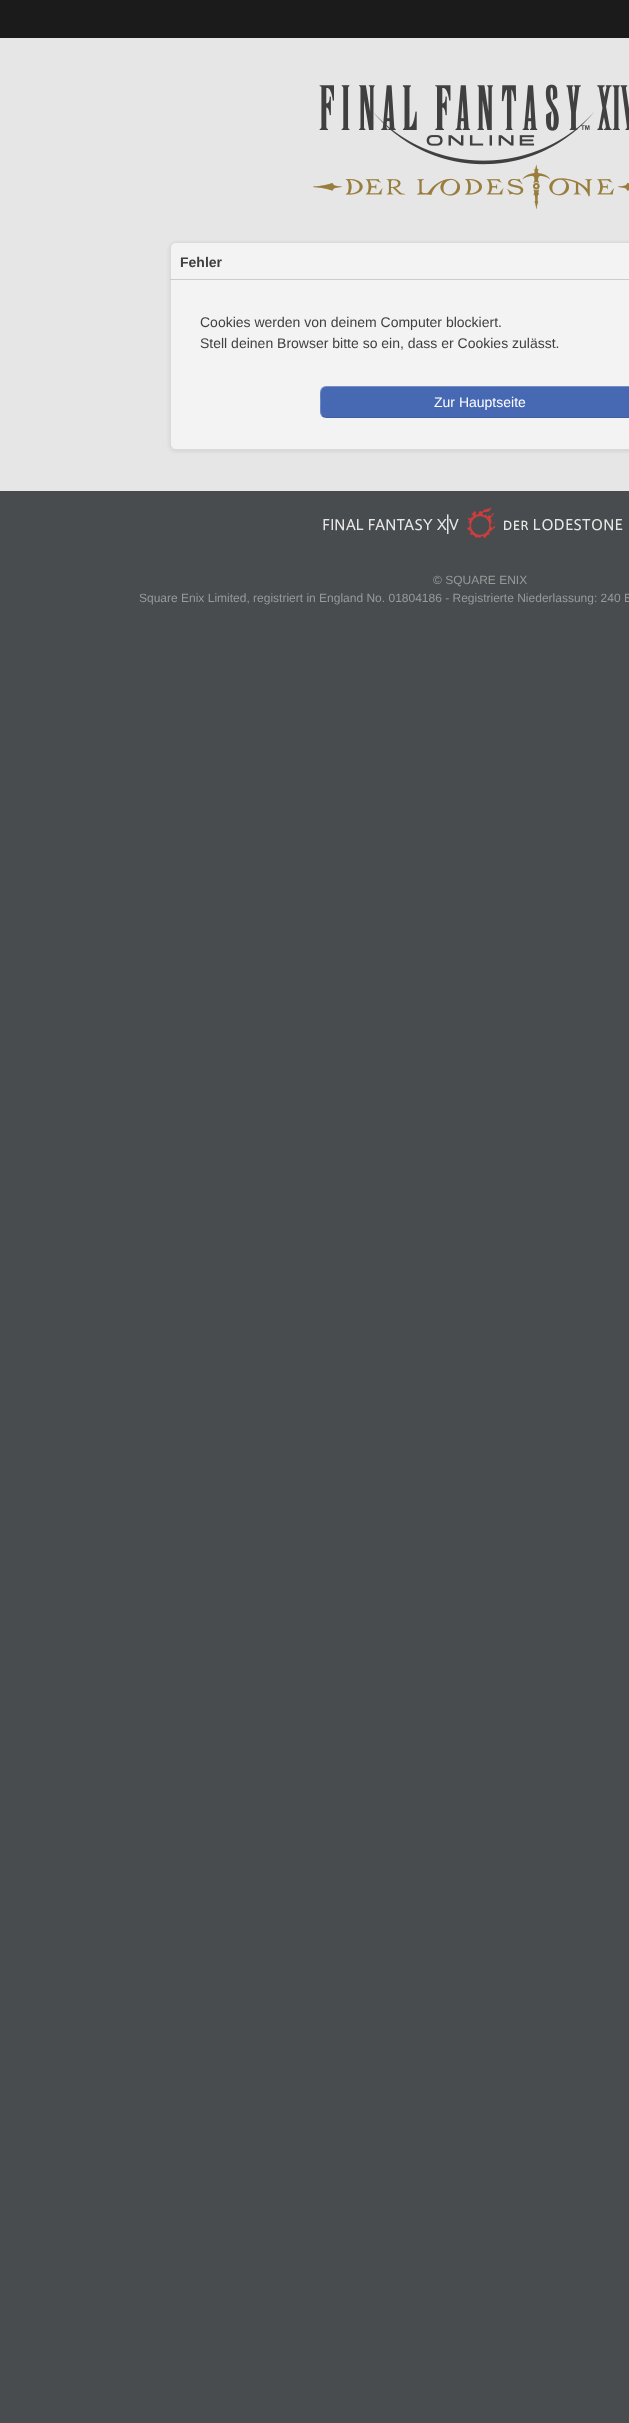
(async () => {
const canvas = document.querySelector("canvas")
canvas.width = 629
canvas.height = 2423
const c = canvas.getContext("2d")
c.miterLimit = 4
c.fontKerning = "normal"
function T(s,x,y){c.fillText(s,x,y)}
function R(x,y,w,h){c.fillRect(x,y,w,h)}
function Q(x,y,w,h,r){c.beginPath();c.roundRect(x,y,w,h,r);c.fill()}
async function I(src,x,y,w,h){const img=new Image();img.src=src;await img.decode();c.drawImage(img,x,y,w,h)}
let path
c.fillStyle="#484c4e"
R(0,0,629,2423)
c.fillStyle="#1b1b1b"
R(0,0,629,38)
c.fillStyle="#e6e6e6"
R(0,38,629,453)
await I("1.png",313,84,316,126)
c.fillStyle="#0000001a"
c.filter="blur(2px)"
c.beginPath()
c.roundRect(170,243,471,208,6)
c.fill()
c.filter="none"
c.fillStyle="#f3f3f3"
Q(170,242,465,208,6)
c.beginPath()
c.roundRect(170.5,242.5,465,207,5.5)
c.strokeStyle="#0000001a"
c.stroke()
c.fillStyle="#ccc"
R(170,279,459,1)
c.font="bold 14px Liberation Sans"
c.fillStyle="#404040"
T("Fehler",180,267)
c.font="14px Liberation Sans"
T("Cookies werden von deinem Computer blockiert.",200,327)
T("Stell deinen Browser bitte so ein, dass er Cookies zulässt.",200,348)
c.fillStyle="#4769b3"
Q(320,386,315,32,6)
c.fillStyle="#ffffff40"
path = new Path2D("M326 386c-3.5 0-6 2.5-6 6v20c0 3.5 2.5 6 6 6h1c-8 0-6-11.5-6-16c0-4.5-2-16 6-16z")
c.fill(path)
c.fillStyle="#0000001a"
path = new Path2D("M320 411v1c0 3 3 6 6 6h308c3 0 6-3 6-6v-1c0 3-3 6-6 6h-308c-3 0-6-3-6-6z")
c.fill(path)
c.fillStyle="#ffffff40"
path = new Path2D("M326 387h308c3 0 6 3 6 6v-1c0-3-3-6-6-6h-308c-3 0-6 3-6 6v1c0-3 3-6 6-6z")
c.fill(path)
c.fillStyle="#fff"
T("Zur Hauptseite",434,407)
await I("2.png",323,507,300,31)
c.font="12px Liberation Sans"
c.fillStyle="#999"
T("© SQUARE ENIX",433,584)
T("Square Enix Limited, registriert in England No. 01804186 - Registrierte Niederlassung: 240 B",139,602)
})()
